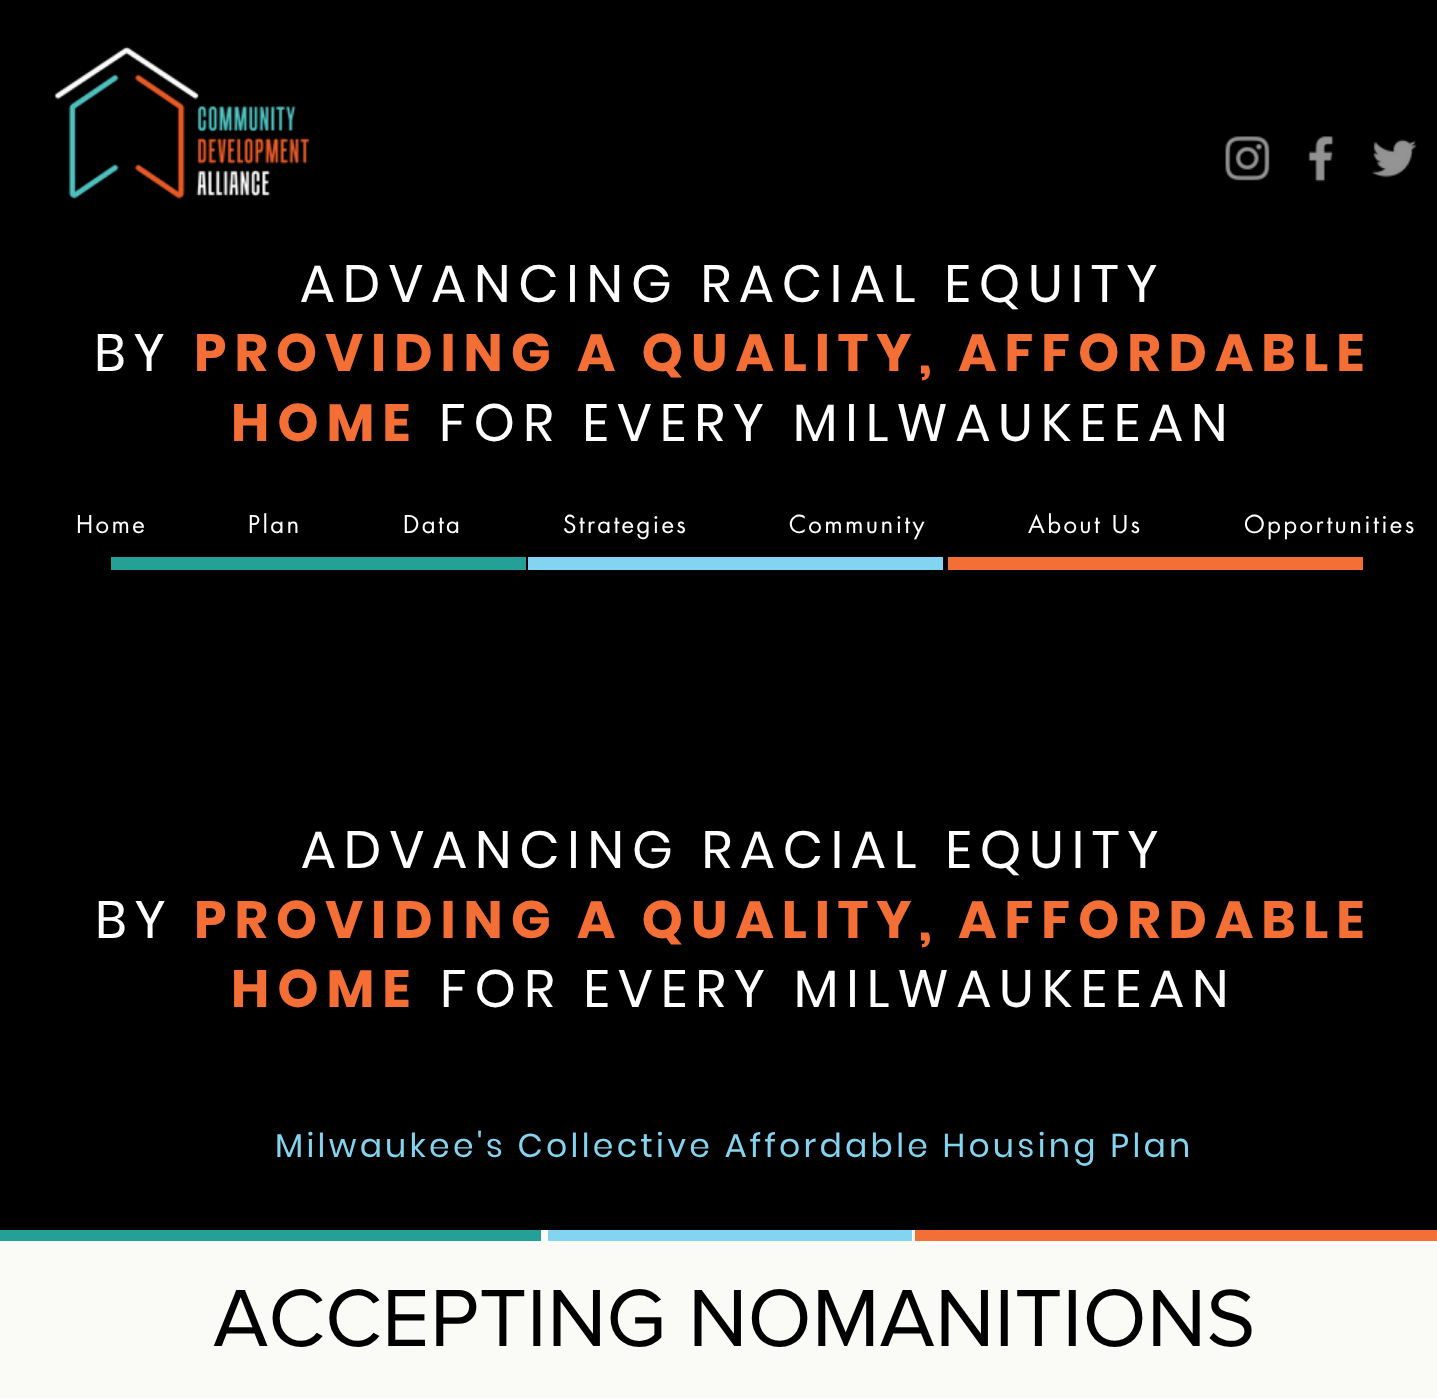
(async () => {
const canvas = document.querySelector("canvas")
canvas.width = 1437
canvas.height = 1398
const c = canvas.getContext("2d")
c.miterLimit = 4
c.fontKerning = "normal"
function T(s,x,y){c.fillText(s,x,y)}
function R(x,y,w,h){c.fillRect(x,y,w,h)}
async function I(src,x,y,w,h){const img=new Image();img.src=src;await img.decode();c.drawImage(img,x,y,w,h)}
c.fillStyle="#fafaf7"
R(0,0,1437,1398)
c.fillStyle="#000"
R(0,0,1437,1230)
await I("1.png",54,46,256,153)
await I("2.png",1225,136,45,45)
await I("3.png",1308,136,26,46)
await I("4.png",1372,139,45,39)
c.letterSpacing="7.9px"
c.font="52.5px Poppins"
c.fillStyle="#fff"
T("ADVANCING RACIAL EQUITY",300,302)
T("BY",94,371)
c.font="bold 52.5px Poppins"
c.fillStyle="#f36f35"
T("PROVIDING A QUALITY, AFFORDABLE",194,371)
T("HOME",231,441)
c.font="52.5px Poppins"
c.fillStyle="#fff"
T("FOR EVERY MILWAUKEEAN",439,441)
c.letterSpacing="2.4px"
c.font="24px futura"
T("Home",76,533)
T("Plan",248,533)
T("Data",403,533)
T("Strategies",563,533)
T("Community",789,533)
T("About Us",1028,533)
T("Opportunities",1244,533)
c.fillStyle="#24a097"
R(111,557,415,13)
c.fillStyle="#83d4f1"
R(528,557,415,13)
c.fillStyle="#f36f35"
R(948,557,415,13)
c.letterSpacing="7.9px"
c.font="52.5px Poppins"
c.fillStyle="#fff"
T("ADVANCING RACIAL EQUITY",301,868)
T("BY",95,938)
c.font="bold 52.5px Poppins"
c.fillStyle="#f36f35"
T("PROVIDING A QUALITY, AFFORDABLE",194,938)
T("HOME",231,1007)
c.font="52.5px Poppins"
c.fillStyle="#fff"
T("FOR EVERY MILWAUKEEAN",440,1007)
c.letterSpacing="3.3px"
c.font="33px Poppins"
c.fillStyle="#84d4ef"
T("Milwaukee's Collective Affordable Housing Plan",275,1157)
c.fillStyle="#24a097"
R(0,1230,541,11)
c.fillStyle="#83d4f1"
R(548,1230,364,11)
c.fillStyle="#f36f35"
R(915,1230,522,11)
c.letterSpacing="0px"
c.font="84px 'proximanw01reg'"
c.fillStyle="#000"
T("ACCEPTING NOMANITIONS",213,1346)
})()
